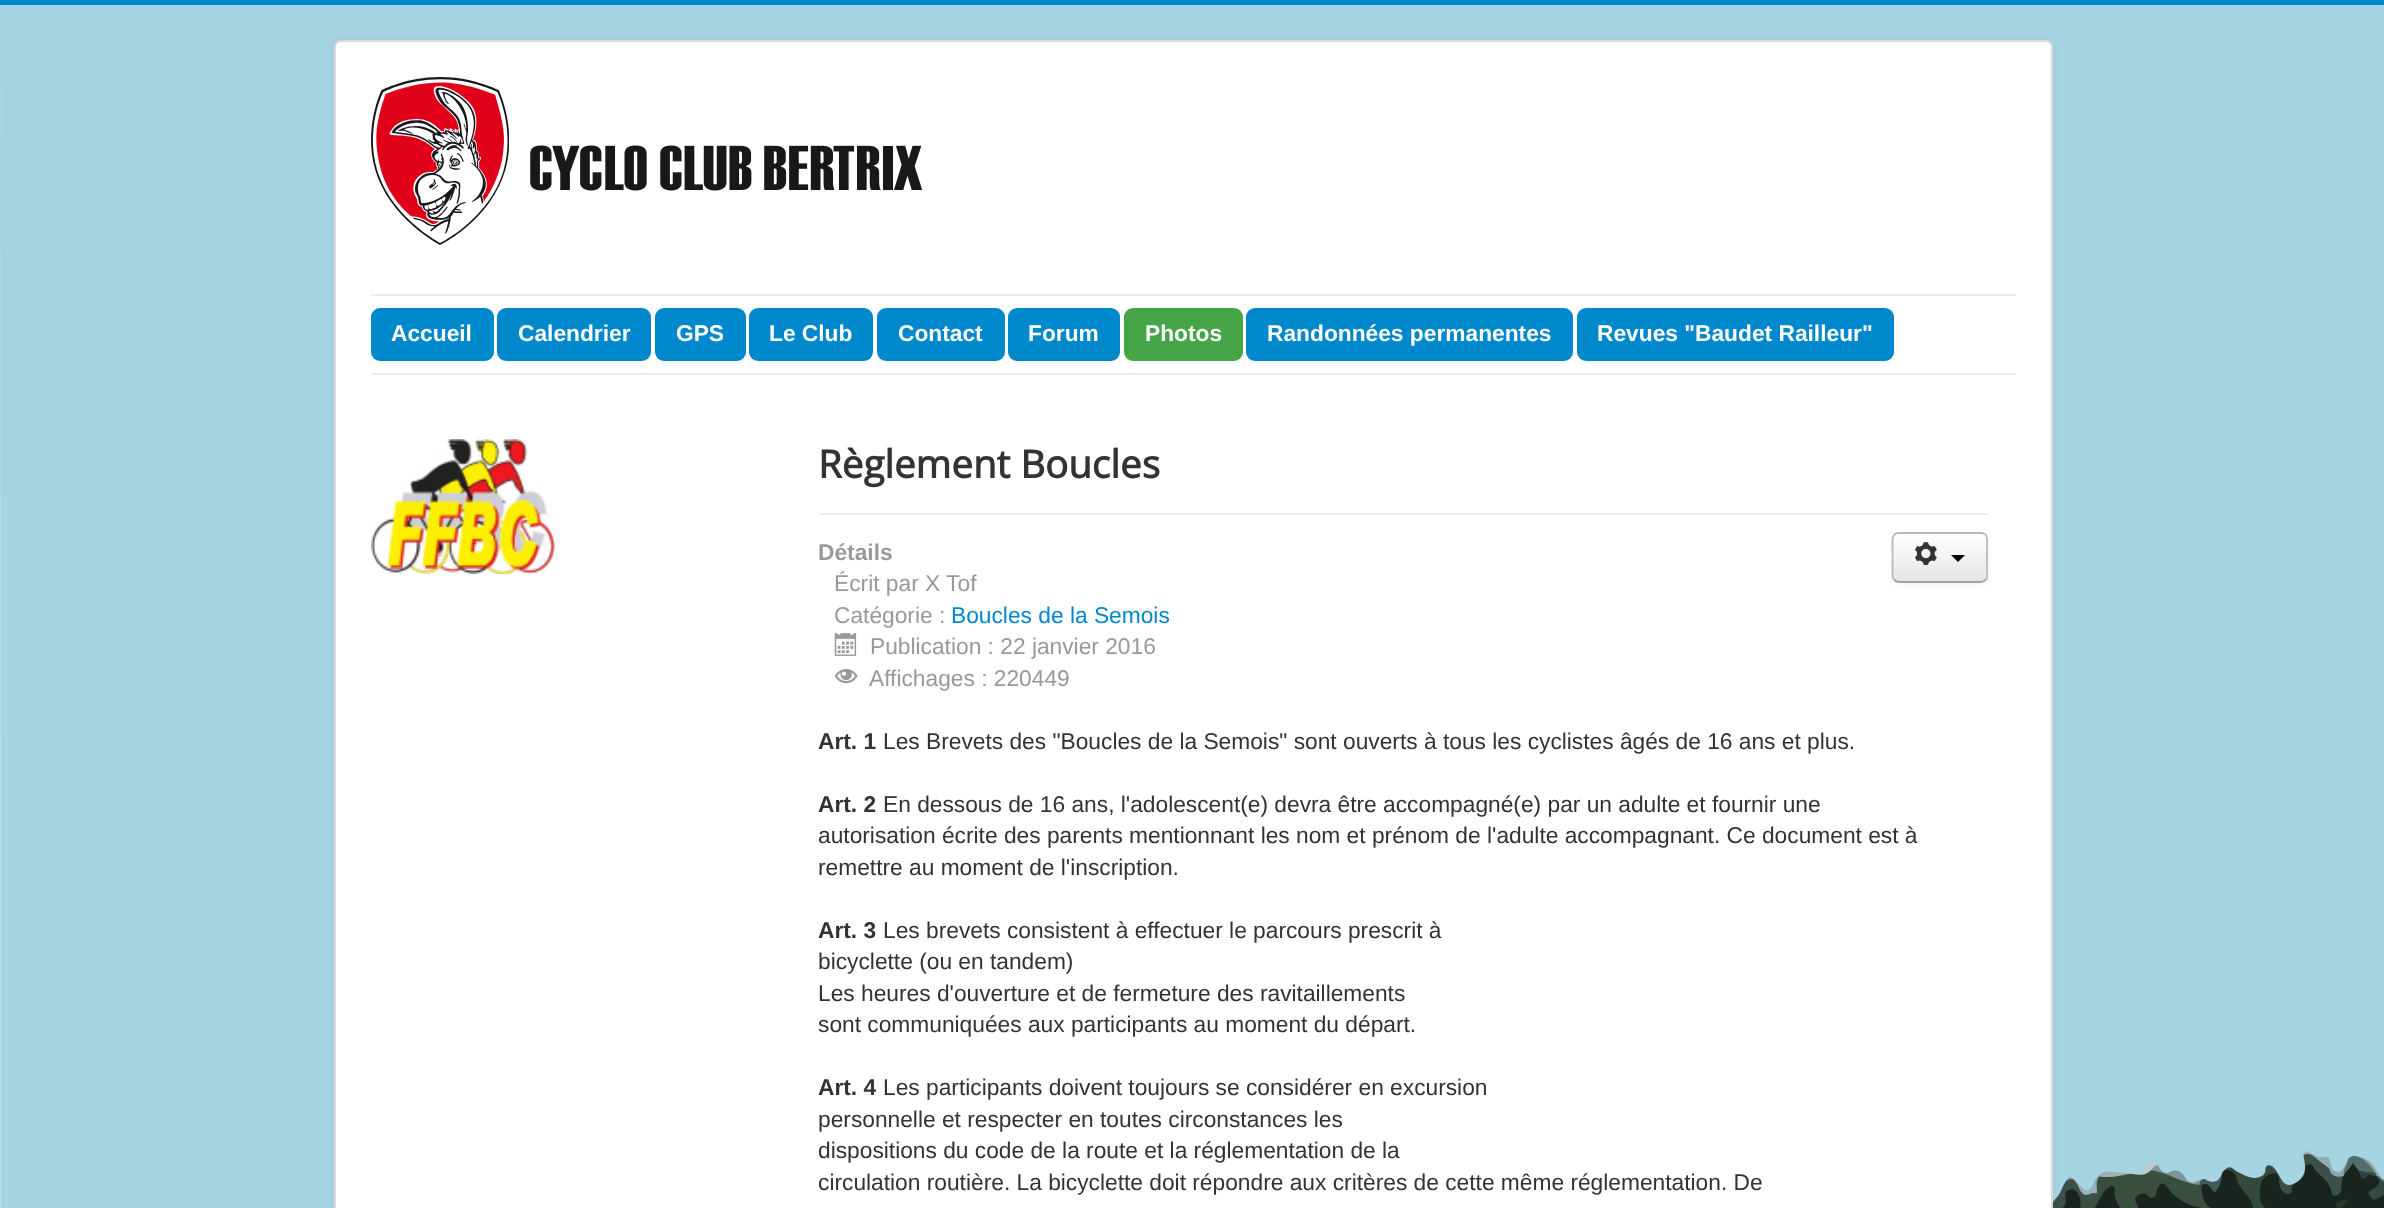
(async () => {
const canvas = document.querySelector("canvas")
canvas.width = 2384
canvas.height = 1208
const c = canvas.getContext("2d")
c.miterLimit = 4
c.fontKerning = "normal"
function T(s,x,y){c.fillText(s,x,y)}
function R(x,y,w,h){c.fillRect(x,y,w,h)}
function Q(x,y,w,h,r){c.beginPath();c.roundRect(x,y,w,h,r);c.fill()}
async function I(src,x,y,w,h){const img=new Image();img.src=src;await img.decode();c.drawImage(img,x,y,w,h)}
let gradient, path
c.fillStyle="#fff"
R(0,0,2384,1208)
await I("1.png",0,5,2384,1203)
c.fillStyle="#08c"
R(0,0,2384,5)
c.fillStyle="#0000000d"
c.filter="blur(5px)"
c.beginPath()
c.roundRect(334,40,1719,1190,7)
c.fill()
c.filter="none"
c.fillStyle="#fff"
Q(334,40,1719,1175,7)
c.beginPath()
c.roundRect(335,41,1717,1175,6)
c.strokeStyle="#00000026"
c.lineWidth=2
c.stroke()
await I("2.png",371,77,138,168)
await I("3.png",530,145,392,46)
c.fillStyle="#ececec"
R(371,294,1645,2)
R(371,373,1645,2)
c.fillStyle="#08c"
Q(371,308,123,53,9)
c.font="bold 22.75px Liberation Sans"
c.fillStyle="#fff"
T("Accueil",391,341)
c.fillStyle="#08c"
Q(497,308,154,53,9)
c.fillStyle="#fff"
T("Calendrier",518,341)
c.fillStyle="#08c"
Q(655,308,91,53,9)
c.fillStyle="#fff"
T("GPS",676,341)
c.fillStyle="#08c"
Q(749,308,124,53,9)
c.fillStyle="#fff"
T("Le Club",769,341)
c.fillStyle="#08c"
Q(877,308,128,53,9)
c.fillStyle="#fff"
T("Contact",898,341)
c.fillStyle="#08c"
Q(1008,308,112,53,9)
c.fillStyle="#fff"
T("Forum",1028,341)
c.fillStyle="#46a546"
Q(1124,308,119,53,9)
c.fillStyle="#fff"
T("Photos",1145,341)
c.fillStyle="#08c"
Q(1246,308,327,53,9)
c.fillStyle="#fff"
T("Randonnées permanentes",1267,341)
c.fillStyle="#08c"
Q(1577,308,317,53,9)
c.fillStyle="#fff"
T("Revues \"Baudet Railleur\"",1597,341)
await I("4.png",371,439,184,135)
c.fillStyle="#eee"
R(819,513,1169,2)
c.font="bold 38.5px Open Sans"
c.fillStyle="#333"
T("Règlement Boucles",818,478)
c.font="bold 22.75px Liberation Sans"
c.fillStyle="#999"
T("Détails",818,560)
c.font="22.75px Liberation Sans"
T("Écrit par X Tof",834,591)
T("Catégorie :",834,623)
c.fillStyle="#08c"
T("Boucles de la Semois",951,623)
await I("5.png",834,633,23,23)
c.fillStyle="#999"
T("Publication : 22 janvier 2016",870,654)
await I("6.png",834,669,24,15)
T("Affichages : 220449",869,686)
c.fillStyle="#0000000d"
c.filter="blur(2px)"
c.beginPath()
c.roundRect(1892,534,96,51,7)
c.fill()
c.filter="none"
c.fillStyle="#f5f5f5"
Q(1892,532,96,51,7)
c.save()
c.beginPath()
c.roundRect(1892,532,96,51,7)
c.clip()
gradient = c.createLinearGradient(1940,534,1940,581)
gradient.addColorStop(0,"#fff")
gradient.addColorStop(1,"#e6e6e6")
c.fillStyle = gradient
R(1892,534,96,47)
c.restore()
path = new Path2D("M1985.5 580c-1.5 1-3 2-4.5 2h-82c-2 0-3.5-1-4.5-2")
c.strokeStyle="#a2a2a2"
c.lineWidth=1.8
c.stroke(path)
path = new Path2D("M1894.5 580c-1-1-2-2.5-2-4v-37c0-1.5 1-3 2-4.5c1-1 2.5-1.5 4.5-1.5h82c1.5 0 3 .5 4.5 1.5c1 1.5 1.5 3 1.5 4.5v37c0 1.5-.5 3-1.5 4")
c.strokeStyle="#bbb"
c.stroke(path)
await I("7.png",1915,542,22,23)
c.fillStyle="#000"
path = new Path2D("M1951 555h14l-7 7z")
c.fill(path)
c.font="bold 22.75px Liberation Sans"
c.fillStyle="#333"
T("Art. 1",818,749)
c.font="22.75px Liberation Sans"
T("Les Brevets des \"Boucles de la Semois\" sont ouverts à tous les cyclistes âgés de 16 ans et plus.",883,749)
c.font="bold 22.75px Liberation Sans"
T("Art. 2",818,812)
c.font="22.75px Liberation Sans"
T("En dessous de 16 ans, l'adolescent(e) devra être accompagné(e) par un adulte et fournir une",883,812)
T("autorisation écrite des parents mentionnant les nom et prénom de l'adulte accompagnant. Ce document est à",818,843)
T("remettre au moment de l'inscription.",818,875)
c.font="bold 22.75px Liberation Sans"
T("Art. 3",818,938)
c.font="22.75px Liberation Sans"
T("Les brevets consistent à effectuer le parcours prescrit à",883,938)
T("bicyclette (ou en tandem)",818,969)
T("Les heures d'ouverture et de fermeture des ravitaillements",818,1001)
T("sont communiquées aux participants au moment du départ.",818,1032)
c.font="bold 22.75px Liberation Sans"
T("Art. 4",818,1095)
c.font="22.75px Liberation Sans"
T("Les participants doivent toujours se considérer en excursion",883,1095)
T("personnelle et respecter en toutes circonstances les",818,1127)
T("dispositions du code de la route et la réglementation de la",818,1158)
T("circulation routière. La bicyclette doit répondre aux critères de cette même réglementation. De",818,1190)
})()
